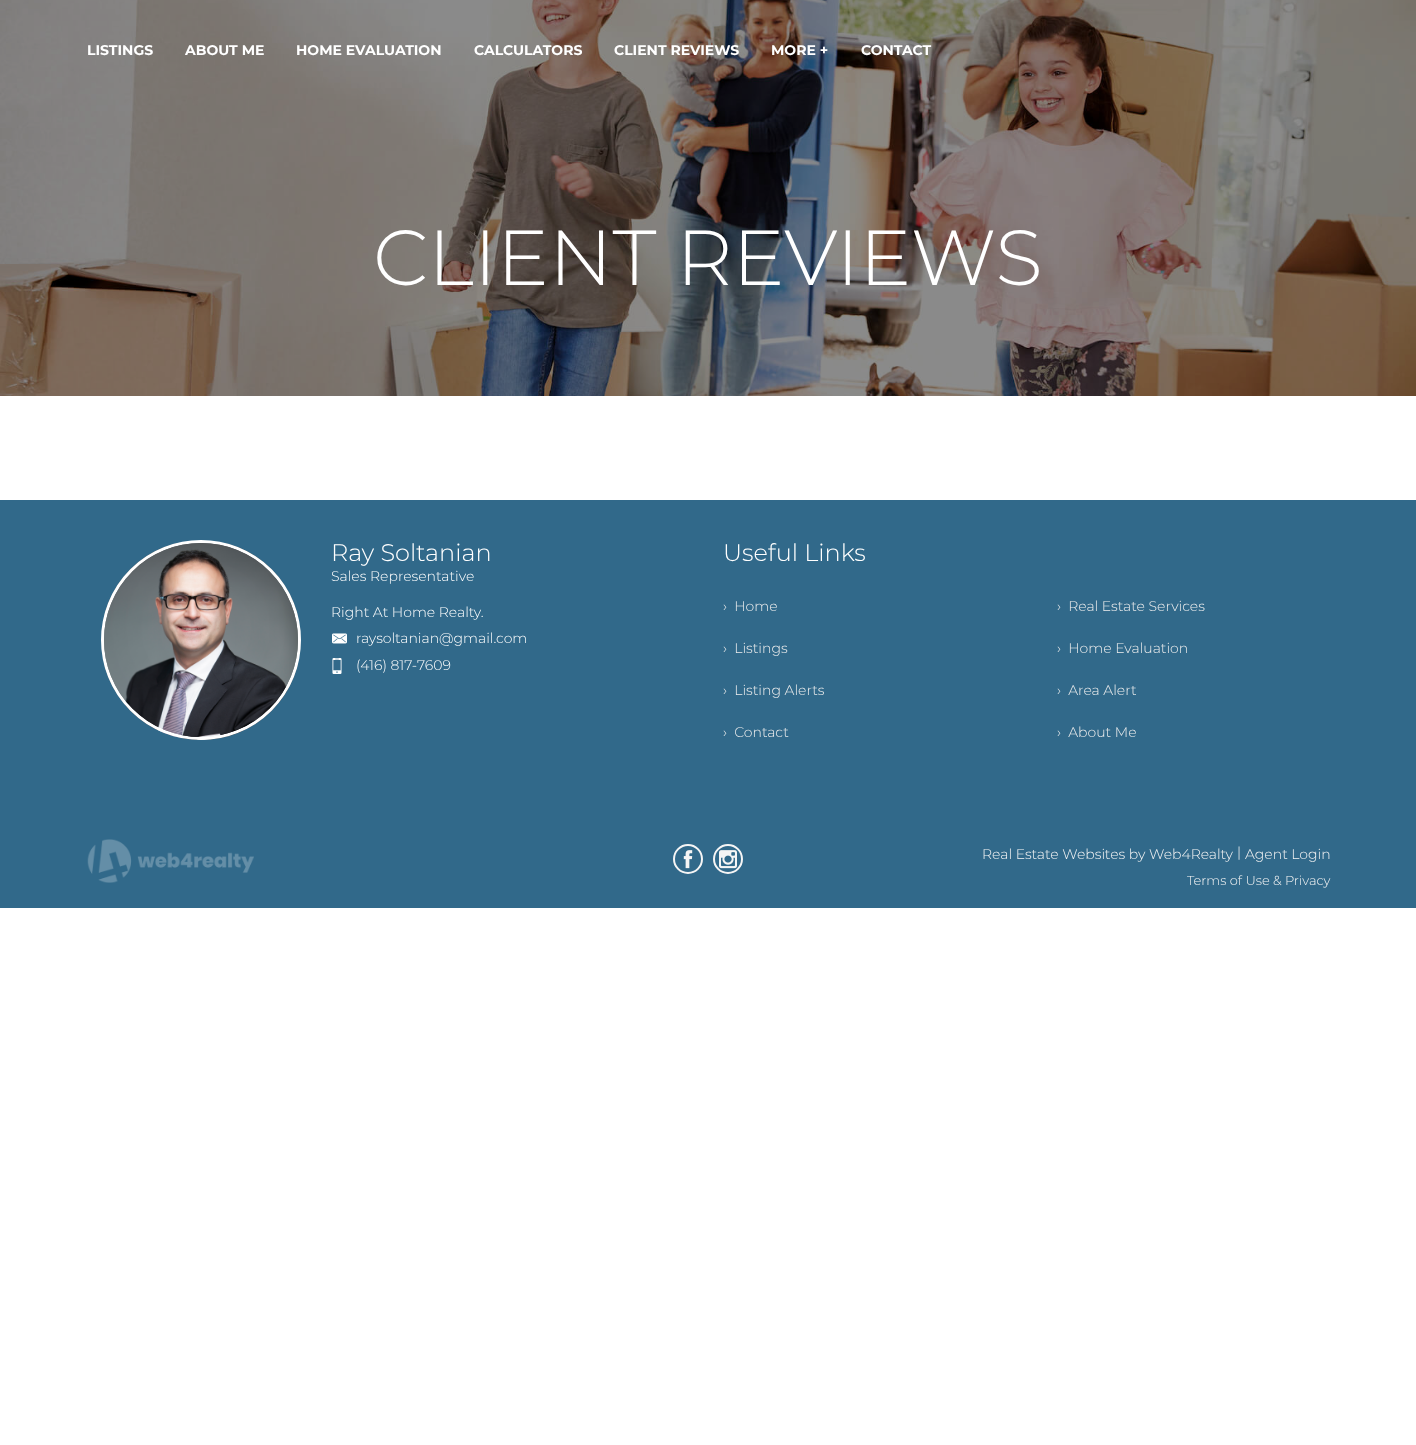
(async () => {
const canvas = document.querySelector("canvas")
canvas.width = 1416
canvas.height = 1445
const c = canvas.getContext("2d")
c.miterLimit = 4
c.fontKerning = "normal"
function T(s,x,y){c.fillText(s,x,y)}
function R(x,y,w,h){c.fillRect(x,y,w,h)}
async function I(src,x,y,w,h){const img=new Image();img.src=src;await img.decode();c.drawImage(img,x,y,w,h)}
c.fillStyle="#fff"
R(0,0,1416,1445)
c.fillStyle="#000"
R(0,0,1416,396)
await I("1.png",0,0,1416,396)
c.font="bold 14px Montserrat"
c.fillStyle="#fff"
T("LISTINGS",87,55)
T("ABOUT ME",185,55)
T("HOME EVALUATION",296,55)
T("CALCULATORS",474,55)
T("CLIENT REVIEWS",614,55)
T("MORE +",771,55)
T("CONTACT",861,55)
c.font="300 78px Montserrat"
T("CLIENT REVIEWS",373,285)
c.fillStyle="#31698a"
R(0,500,1416,408)
await I("2.png",104,543,194,197)
c.beginPath()
c.arc(201,640,98.5,0,7)
c.strokeStyle="#fff"
c.lineWidth=3
c.stroke()
await I("3.png",104,543,194,194)
c.font="300 24px Montserrat"
c.fillStyle="#fff"
T("Ray Soltanian",331,561)
c.font="300 14px Montserrat"
T("Sales Representative",331,581)
T("Right At Home Realty.",331,617)
await I("4.png",332,633,15,11)
T("raysoltanian@gmail.com",356,643)
await I("5.png",332,658,10,16)
T("(416) 817-7609",356,670)
c.font="300 24px Montserrat"
T("Useful Links",723,561)
c.font="300 14px Montserrat"
c.fillStyle="#eee"
T("›  Home",723,611)
T("›  Real Estate Services",1057,611)
T("›  Listings",723,653)
T("›  Home Evaluation",1057,653)
T("›  Listing Alerts",723,695)
T("›  Area Alert",1057,695)
T("›  Contact",723,737)
T("›  About Me",1057,737)
await I("6.png",87,839,167,44)
c.beginPath()
c.arc(688,859,14,0,7)
c.strokeStyle="#f5f5f5"
c.lineWidth=2
c.stroke()
await I("7.png",683,850,10,19)
c.beginPath()
c.arc(728,859,14,0,7)
c.stroke()
await I("8.png",719,850,18,19)
c.fillStyle="#f5f5f5"
T("Real Estate Websites by Web4Realty",982,859)
T("|",1237,857)
T("Agent Login",1245,859)
c.font="300 13px Montserrat"
T("Terms of Use & Privacy",1187,885)
})()
